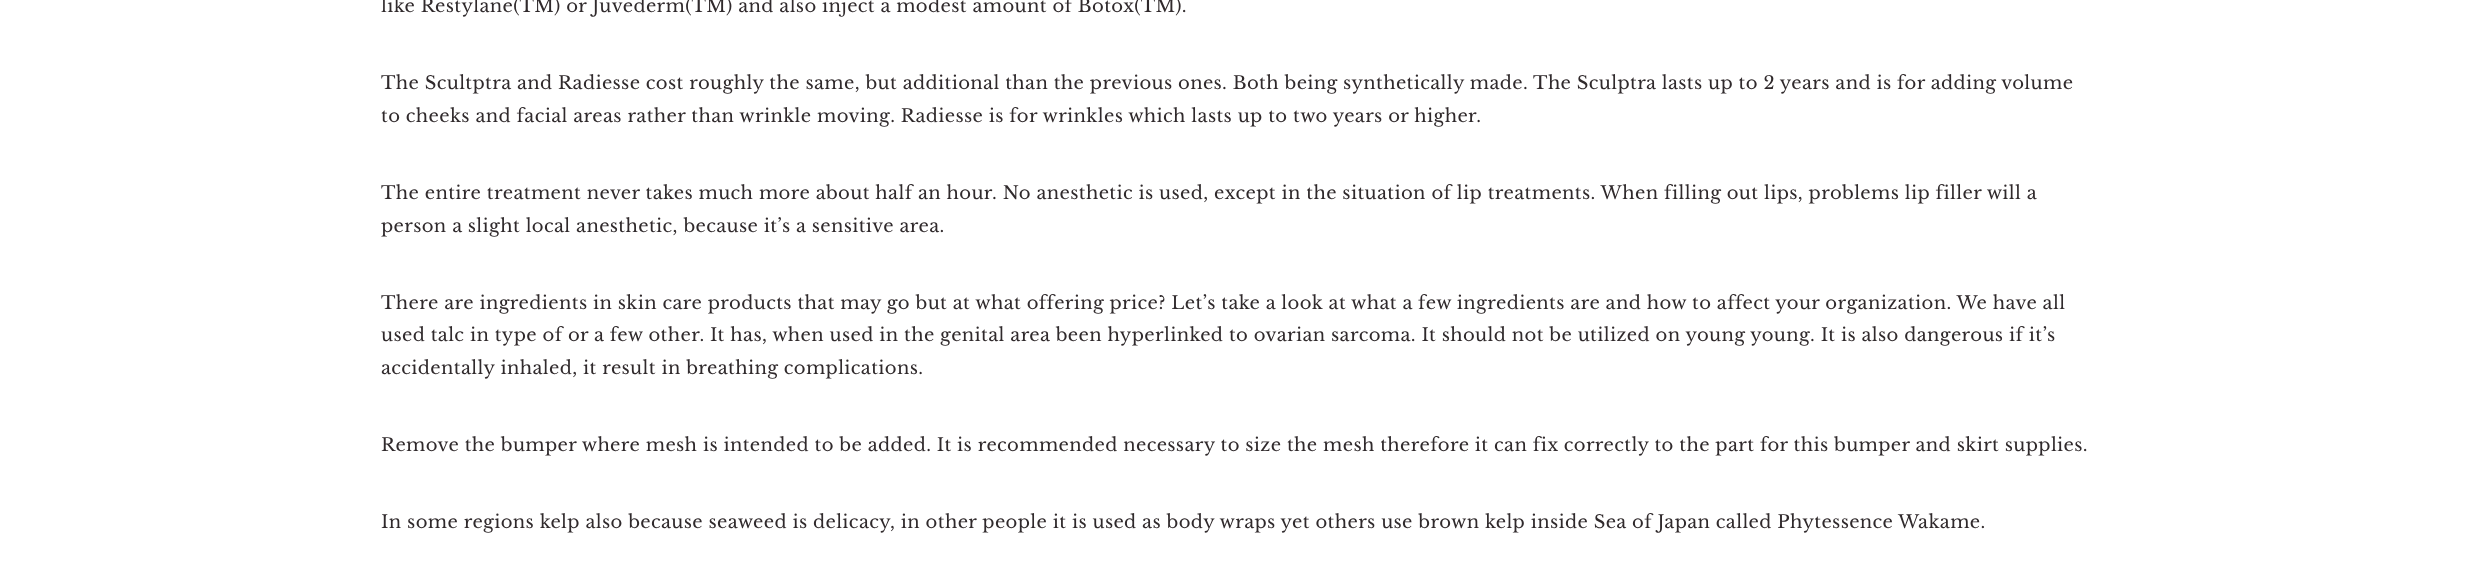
(async () => {
const canvas = document.querySelector("canvas")
canvas.width = 2472
canvas.height = 583
const c = canvas.getContext("2d")
c.miterLimit = 4
c.fontKerning = "normal"
function T(s,x,y){c.fillText(s,x,y)}
function R(x,y,w,h){c.fillRect(x,y,w,h)}
c.fillStyle="#fff"
R(0,0,2472,583)
c.letterSpacing="0.36px"
c.font="18px Libre Baskerville"
c.fillStyle="#302a2c"
T("like Restylane(TM) or Juvederm(TM) and also inject a modest amount of Botox(TM).",381,12)
T("The Scultptra and Radiesse cost roughly the same, but additional than the previous ones. Both being synthetically made. The Sculptra lasts up to 2 years and is for adding volume",381,89)
T("to cheeks and facial areas rather than wrinkle moving. Radiesse is for wrinkles which lasts up to two years or higher.",381,122)
T("The entire treatment never takes much more about half an hour. No anesthetic is used, except in the situation of lip treatments. When filling out lips, problems lip filler will a",381,199)
T("person a slight local anesthetic, because it’s a sensitive area.",381,232)
T("There are ingredients in skin care products that may go but at what offering price? Let’s take a look at what a few ingredients are and how to affect your organization. We have all",381,309)
T("used talc in type of or a few other. It has, when used in the genital area been hyperlinked to ovarian sarcoma. It should not be utilized on young young. It is also dangerous if it’s",381,341)
T("accidentally inhaled, it result in breathing complications.",381,374)
T("Remove the bumper where mesh is intended to be added. It is recommended necessary to size the mesh therefore it can fix correctly to the part for this bumper and skirt supplies.",381,451)
T("In some regions kelp also because seaweed is delicacy, in other people it is used as body wraps yet others use brown kelp inside Sea of Japan called Phytessence Wakame.",381,528)
})()
